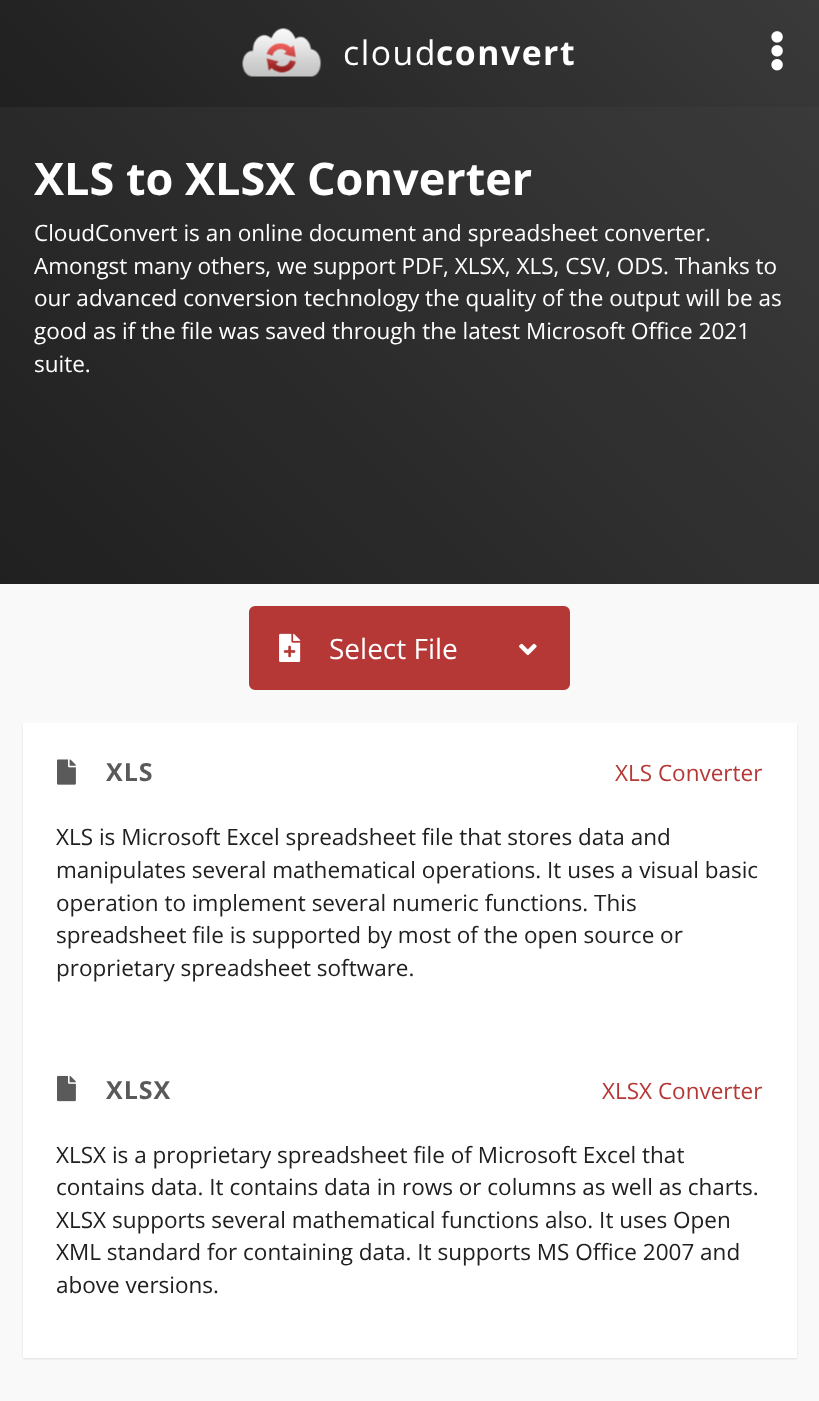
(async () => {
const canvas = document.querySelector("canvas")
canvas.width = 819
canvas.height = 1401
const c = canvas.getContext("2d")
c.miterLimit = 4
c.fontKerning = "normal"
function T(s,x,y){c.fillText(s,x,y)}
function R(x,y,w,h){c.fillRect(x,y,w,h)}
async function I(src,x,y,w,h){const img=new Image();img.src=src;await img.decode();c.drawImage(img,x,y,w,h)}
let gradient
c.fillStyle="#fff"
R(0,0,819,1401)
gradient = c.createLinearGradient(178,285,641,-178)
gradient.addColorStop(0,"#202020")
gradient.addColorStop(1,"#3a3a3a")
c.fillStyle = gradient
R(0,0,819,107)
await I("1.png",242,28,80,49)
c.letterSpacing="1.5px"
c.font="33.75px Open Sans"
c.fillStyle="#fff"
T("cloud",343,65)
c.font="bold 33.75px Open Sans"
T("convert",436,65)
await I("2.png",771,31,12,40)
gradient = c.createLinearGradient(86,669,734,21)
gradient.addColorStop(0,"#202020")
gradient.addColorStop(1,"#3a3a3a")
c.fillStyle = gradient
R(0,107,819,477)
c.letterSpacing="0px"
c.font="bold 45px Open Sans"
c.fillStyle="#fff"
T("XLS to XLSX Converter",34,195)
c.font="22.5px Open Sans"
T("CloudConvert is an online document and spreadsheet converter.",34,241)
T("Amongst many others, we support PDF, XLSX, XLS, CSV, ODS. Thanks to",34,274)
T("our advanced conversion technology the quality of the output will be as",34,306)
T("good as if the file was saved through the latest Microsoft Office 2021",34,339)
T("suite.",34,372)
c.fillStyle="#f9f9f9"
R(0,584,819,817)
c.fillStyle="#b53836"
c.beginPath()
c.roundRect(250,607,238,82,[5,0,0,5])
c.fill()
c.strokeStyle="#b53836"
c.lineWidth=2
c.stroke()
await I("3.png",279,633,22,29)
c.font="28px Open Sans"
c.fillStyle="#fff"
T("Select File",329,659)
c.fillStyle="#b53836"
c.beginPath()
c.roundRect(489,607,80,82,[0,5,5,0])
c.fill()
c.stroke()
await I("4.png",519,643,18,13)
c.fillStyle="#0000001a"
c.filter="blur(1px)"
c.beginPath()
c.rect(23,725,774,318)
c.fill()
c.filter="none"
c.fillStyle="#fff"
R(23,723,774,318)
await I("5.png",57,759,19,26)
c.letterSpacing="1px"
c.font="bold 25px Open Sans"
c.fillStyle="#5a5a5a"
T("XLS",106,781)
c.letterSpacing="0px"
c.font="22.5px Open Sans"
c.fillStyle="#b53836"
T("XLS Converter",615,781)
c.fillStyle="#202020"
T("XLS is Microsoft Excel spreadsheet file that stores data and",56,845)
T("manipulates several mathematical operations. It uses a visual basic",56,878)
T("operation to implement several numeric functions. This",56,911)
T("spreadsheet file is supported by most of the open source or",56,943)
T("proprietary spreadsheet software.",56,976)
c.fillStyle="#0000001a"
c.filter="blur(1px)"
c.beginPath()
c.rect(23,1043,774,316)
c.fill()
c.filter="none"
c.fillStyle="#fff"
R(23,1041,774,317)
await I("6.png",57,1075,19,27)
c.letterSpacing="1px"
c.font="bold 25px Open Sans"
c.fillStyle="#5a5a5a"
T("XLSX",106,1099)
c.letterSpacing="0px"
c.font="22.5px Open Sans"
c.fillStyle="#b53836"
T("XLSX Converter",602,1099)
c.fillStyle="#202020"
T("XLSX is a proprietary spreadsheet file of Microsoft Excel that",56,1163)
T("contains data. It contains data in rows or columns as well as charts.",56,1195)
T("XLSX supports several mathematical functions also. It uses Open",56,1228)
T("XML standard for containing data. It supports MS Office 2007 and",56,1260)
T("above versions.",56,1293)
})()
